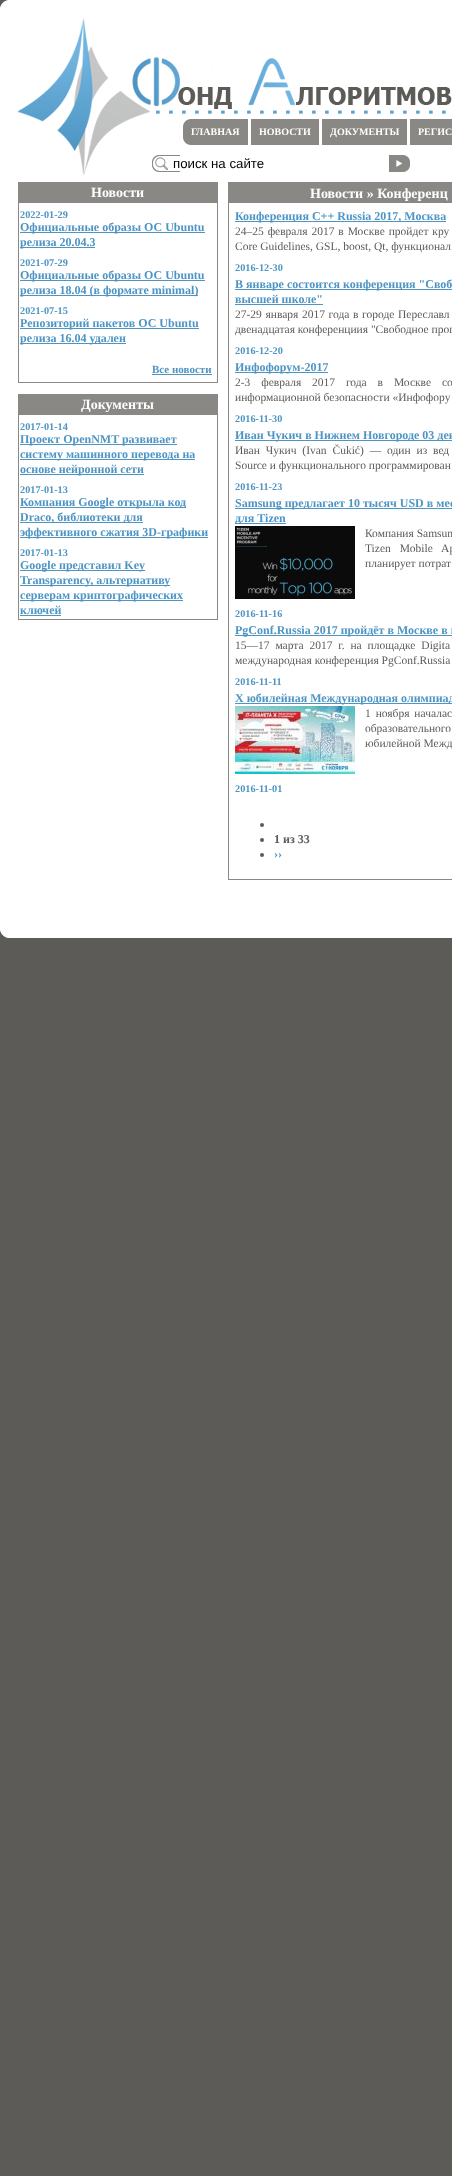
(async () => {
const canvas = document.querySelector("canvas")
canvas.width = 452
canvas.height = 2176
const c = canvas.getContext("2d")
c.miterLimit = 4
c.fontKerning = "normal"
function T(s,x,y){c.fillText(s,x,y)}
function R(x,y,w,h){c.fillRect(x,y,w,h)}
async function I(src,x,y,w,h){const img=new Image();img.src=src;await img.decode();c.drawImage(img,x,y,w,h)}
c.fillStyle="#5c5b57"
R(0,0,452,2176)
c.fillStyle="#fff"
R(0,0,452,938)
await I("1.png",0,0,9,8)
await I("2.png",18,18,434,157)
await I("3.png",156,110,290,4)
c.fillStyle="#898885"
R(183,119,65,26)
await I("4.png",183,119,7,7)
c.font="bold 10px Liberation Serif"
c.fillStyle="#fff"
T("ГЛАВНАЯ",191,135)
await I("5.png",183,138,7,7)
c.fillStyle="#898885"
R(251,119,68,26)
c.fillStyle="#fff"
T("НОВОСТИ",259,135)
c.fillStyle="#898885"
R(322,119,85,26)
c.fillStyle="#fff"
T("ДОКУМЕНТЫ",330,135)
c.fillStyle="#898885"
R(410,119,42,26)
c.fillStyle="#fff"
T("РЕГИС",418,135)
await I("6.png",152,155,28,17)
c.font="13.25px Liberation Sans"
c.fillStyle="#000"
T("поиск на сайте",173,168)
await I("7.png",389,155,21,17)
c.fillStyle="#898885"
R(18,182,200,20)
c.font="bold 14px Liberation Serif"
c.fillStyle="#fff"
T("Новости",91,197)
c.strokeStyle="#898885"
c.strokeRect(18.5,202.5,199,180)
c.font="bold 10.25px Liberation Serif"
c.fillStyle="#4e95c4"
T("2022-01-29",20,218)
R(20,232,185,1)
c.font="bold 12px Liberation Serif"
T("Официальные образы ОС Ubuntu",20,231)
R(20,247,75,1)
T("релиза 20.04.3",20,246)
c.font="bold 10.25px Liberation Serif"
T("2021-07-29",20,266)
R(20,280,185,1)
c.font="bold 12px Liberation Serif"
T("Официальные образы ОС Ubuntu",20,279)
R(20,295,178,1)
T("релиза 18.04 (в формате minimal)",20,294)
c.font="bold 10.25px Liberation Serif"
T("2021-07-15",20,314)
R(20,328,179,1)
c.font="bold 12px Liberation Serif"
T("Репозиторий пакетов ОС Ubuntu",20,327)
R(20,343,106,1)
T("релиза 16.04 удален",20,342)
c.font="bold 11px Liberation Serif"
T("Все новости",152,373)
R(152,374,60,1)
c.fillStyle="#898885"
R(18,394,200,20)
c.font="bold 14px Liberation Serif"
c.fillStyle="#fff"
T("Документы",81,409)
c.strokeRect(18.5,414.5,199,205)
c.font="bold 10.25px Liberation Serif"
c.fillStyle="#4e95c4"
T("2017-01-14",20,430)
R(20,444,157,1)
c.font="bold 12px Liberation Serif"
T("Проект OpenNMT развивает",20,443)
R(20,459,175,1)
T("систему машинного перевода на",20,458)
R(20,474,124,1)
T("основе нейронной сети",20,473)
c.font="bold 10.25px Liberation Serif"
T("2017-01-13",20,493)
R(20,507,166,1)
c.font="bold 12px Liberation Serif"
T("Компания Google открыла код",20,506)
R(20,522,123,1)
T("Draco, библиотеки для",20,521)
R(20,537,188,1)
T("эффективного сжатия 3D-графики",20,536)
c.font="bold 10.25px Liberation Serif"
T("2017-01-13",20,556)
R(20,570,125,1)
c.font="bold 12px Liberation Serif"
T("Google представил Key",20,569)
R(20,585,150,1)
T("Transparency, альтернативу",20,584)
R(20,600,163,1)
T("серверам криптографических",20,599)
T("ключей",20,614)
R(20,615,41,1)
c.strokeRect(228.5,182.5,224,697)
c.fillStyle="#898885"
R(229,183,223,20)
c.font="bold 14px Liberation Serif"
c.fillStyle="#fff"
T("Новости » Конференц",310,198)
c.fillStyle="#4e95c4"
R(235,221,211,1)
c.font="bold 12px Liberation Serif"
T("Конференция C++ Russia 2017, Москва",235,220)
c.wordSpacing="1px"
c.font="11.5px Liberation Serif"
c.fillStyle="#5c5b57"
T("24–25 февраля 2017 в Москве пройдет кру",235,235)
c.wordSpacing="0px"
T("Core Guidelines, GSL, boost, Qt, функционал",235,250)
c.font="bold 10.25px Liberation Serif"
c.fillStyle="#4e95c4"
T("2016-12-30",235,271)
R(235,289,217,1)
c.font="bold 12px Liberation Serif"
T("В январе состоится конференция \"Своб",235,288)
T("высшей школе\"",235,303)
R(235,304,88,1)
c.wordSpacing="0.75px"
c.font="11.5px Liberation Serif"
c.fillStyle="#5c5b57"
T("27-29 января 2017 года в городе Переславл",235,318)
c.wordSpacing="0px"
T("двенадцатая конференциия \"Свободное прог",235,333)
c.font="bold 10.25px Liberation Serif"
c.fillStyle="#4e95c4"
T("2016-12-20",235,354)
R(235,372,93,1)
c.font="bold 12px Liberation Serif"
T("Инфофорум-2017",235,371)
c.wordSpacing="8px"
c.font="11.5px Liberation Serif"
c.fillStyle="#5c5b57"
T("2-3 февраля 2017 года в Москве со",235,386)
c.wordSpacing="0px"
T("информационной безопасности «Инфофору",235,401)
c.font="bold 10.25px Liberation Serif"
c.fillStyle="#4e95c4"
T("2016-11-30",235,422)
R(235,440,217,1)
c.font="bold 12px Liberation Serif"
T("Иван Чукич в Нижнем Новгороде 03 дек",235,439)
c.wordSpacing="3px"
c.font="11.5px Liberation Serif"
c.fillStyle="#5c5b57"
T("Иван Чукич (Ivan Čukić) — один из вед",235,454)
c.wordSpacing="0px"
T("Source и функционального программирован",235,469)
c.font="bold 10.25px Liberation Serif"
c.fillStyle="#4e95c4"
T("2016-11-23",235,490)
R(235,508,217,1)
c.font="bold 12px Liberation Serif"
T("Samsung предлагает 10 тысяч USD в мес",235,507)
R(235,523,51,1)
T("для Tizen",235,522)
await I("8.png",235,526,120,73)
c.font="11.5px Liberation Serif"
c.fillStyle="#5c5b57"
T("Компания Samsun",365,537)
c.wordSpacing="6px"
T("Tizen Mobile Ap",365,552)
c.wordSpacing="0px"
T("планирует потрат",365,567)
c.font="bold 10.25px Liberation Serif"
c.fillStyle="#4e95c4"
T("2016-11-16",235,617)
R(235,635,217,1)
c.font="bold 12px Liberation Serif"
T("PgConf.Russia 2017 пройдёт в Москве в м",235,634)
c.wordSpacing="3px"
c.font="11.5px Liberation Serif"
c.fillStyle="#5c5b57"
T("15—17 марта 2017 г. на площадке Digita",235,649)
c.wordSpacing="0px"
T("международная конференция PgConf.Russia",235,664)
c.font="bold 10.25px Liberation Serif"
c.fillStyle="#4e95c4"
T("2016-11-11",235,685)
R(235,703,217,1)
c.font="bold 12px Liberation Serif"
T("X юбилейная Международная олимпиад",235,702)
await I("9.png",235,706,120,68)
c.wordSpacing="2px"
c.font="11.5px Liberation Serif"
c.fillStyle="#5c5b57"
T("1 ноября началас",365,717)
c.wordSpacing="6px"
T("образовательного",365,732)
c.wordSpacing="0px"
T("юбилейной Межд",365,747)
c.font="bold 10.25px Liberation Serif"
c.fillStyle="#4e95c4"
T("2016-11-01",235,792)
c.fillStyle="#5c5b57"
c.beginPath()
c.arc(262,825,2,0,7)
c.fill()
c.beginPath()
c.arc(262,840,2,0,7)
c.fill()
c.font="bold 12px Liberation Serif"
T("1 из 33",274,843)
c.beginPath()
c.arc(262,855,2,0,7)
c.fill()
c.fillStyle="#4e95c4"
T("››",274,858)
await I("10.png",0,930,9,8)
})()
